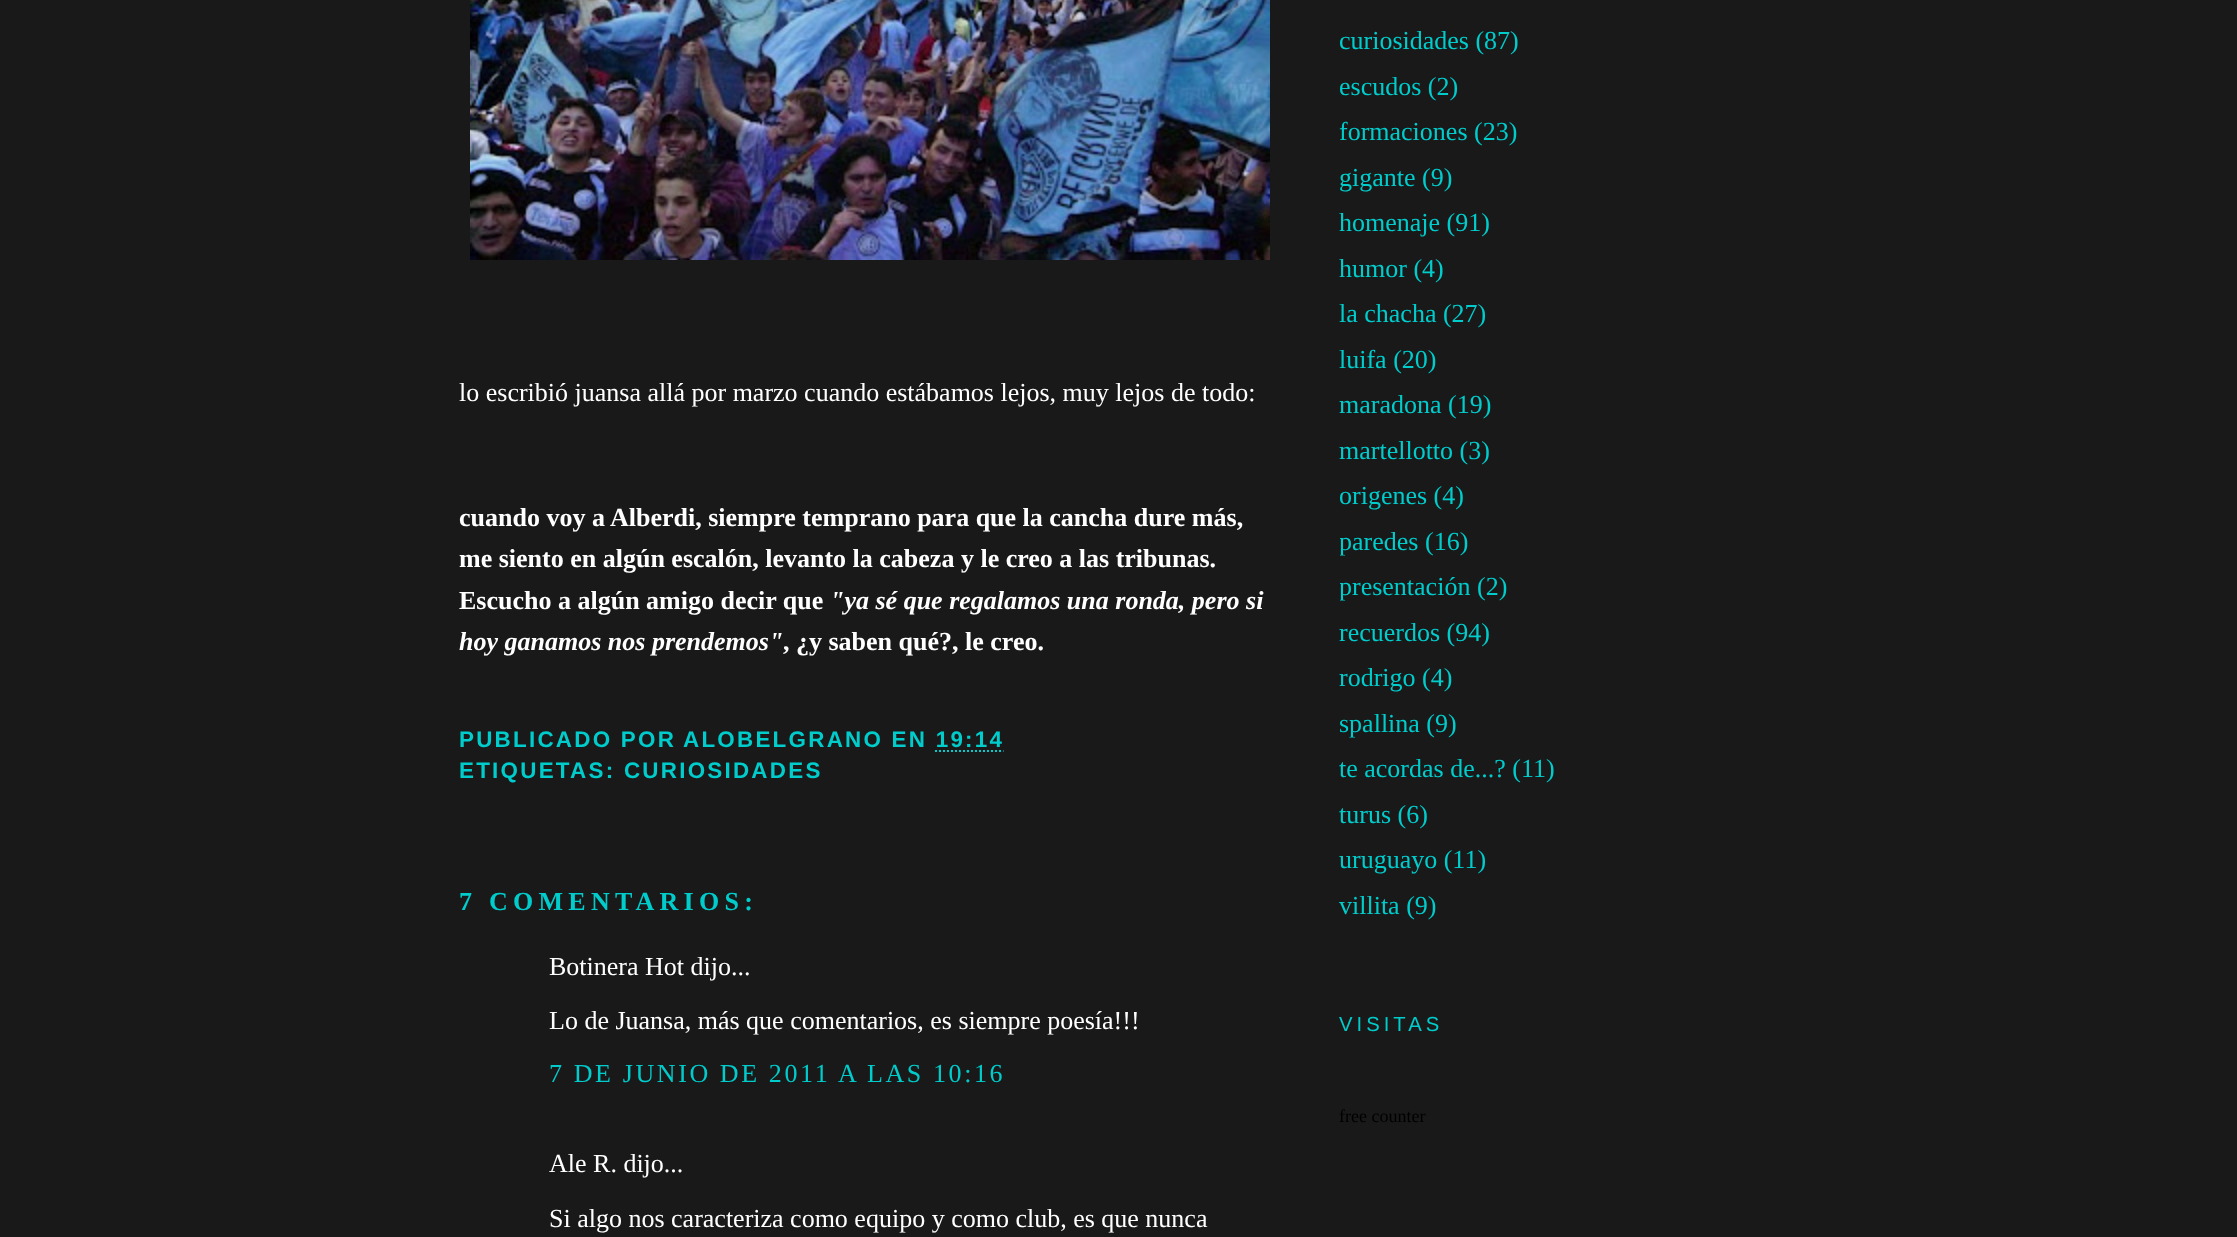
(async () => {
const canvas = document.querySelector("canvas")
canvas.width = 2237
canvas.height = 1237
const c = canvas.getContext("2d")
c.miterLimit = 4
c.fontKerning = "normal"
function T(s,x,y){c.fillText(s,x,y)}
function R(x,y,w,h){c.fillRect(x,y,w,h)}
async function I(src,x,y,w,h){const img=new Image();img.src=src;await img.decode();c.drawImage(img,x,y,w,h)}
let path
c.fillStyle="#191919"
R(0,0,2237,1237)
await I("1.png",470,0,800,260)
c.font="26px Liberation Serif"
c.fillStyle="#fff"
T("lo escribió juansa allá por marzo cuando estábamos lejos, muy lejos de todo:",459,401)
c.font="bold 26px Liberation Serif"
T("cuando voy a Alberdi, siempre temprano para que la cancha dure más,",459,526)
T("me siento en algún escalón, levanto la cabeza y le creo a las tribunas.",459,567)
T("Escucho a algún amigo decir que",459,609)
c.font="italic bold 26px Liberation Serif"
T("\"ya sé que regalamos una ronda, pero si",830,609)
T("hoy ganamos nos prendemos\"",459,650)
c.font="bold 26px Liberation Serif"
T(", ¿y saben qué?, le creo.",783,650)
c.letterSpacing="2.25px"
c.font="bold 22.4px Liberation Sans"
c.fillStyle="#0cc"
T("PUBLICADO POR",459,747)
T("ALOBELGRANO EN 19:14",683,747)
path = new Path2D("M935 751h68.5")
c.strokeStyle="#0cc"
c.lineWidth=2
c.setLineDash([2,2])
c.stroke(path)
T("ETIQUETAS: CURIOSIDADES",459,778)
c.letterSpacing="5.25px"
c.font="bold 26px Liberation Serif"
T("7 COMENTARIOS:",459,910)
c.letterSpacing="0px"
c.font="26px Liberation Serif"
c.fillStyle="#fff"
T("Botinera Hot dijo...",549,975)
T("Lo de Juansa, más que comentarios, es siempre poesía!!!",549,1029)
c.letterSpacing="2.6px"
c.fillStyle="#0cc"
T("7 DE JUNIO DE 2011 A LAS 10:16",549,1082)
c.letterSpacing="0px"
c.fillStyle="#fff"
T("Ale R. dijo...",549,1172)
T("Si algo nos caracteriza como equipo y como club, es que nunca",549,1227)
c.fillStyle="#0cc"
T("curiosidades (87)",1339,49)
T("escudos (2)",1339,95)
T("formaciones (23)",1339,140)
T("gigante (9)",1339,186)
T("homenaje (91)",1339,231)
T("humor (4)",1339,277)
T("la chacha (27)",1339,322)
T("luifa (20)",1339,368)
T("maradona (19)",1339,413)
T("martellotto (3)",1339,459)
T("origenes (4)",1339,504)
c.save()
c.beginPath()
c.rect(1340,0,440,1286)
c.clip()
T("paredes",1339,550)
c.restore()
T("(16)",1425,550)
c.save()
c.beginPath()
c.rect(1340,0,440,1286)
c.clip()
T("presentación",1339,595)
c.restore()
T("(2)",1477,595)
T("recuerdos (94)",1339,641)
T("rodrigo (4)",1339,686)
T("spallina (9)",1339,732)
T("te acordas de...? (11)",1339,777)
T("turus (6)",1339,823)
T("uruguayo (11)",1339,868)
T("villita (9)",1339,914)
c.letterSpacing="4px"
c.font="20.25px Liberation Sans"
T("VISITAS",1339,1031)
c.letterSpacing="0px"
c.font="18px Liberation Serif"
c.fillStyle="#000"
T("free counter",1339,1122)
})()
